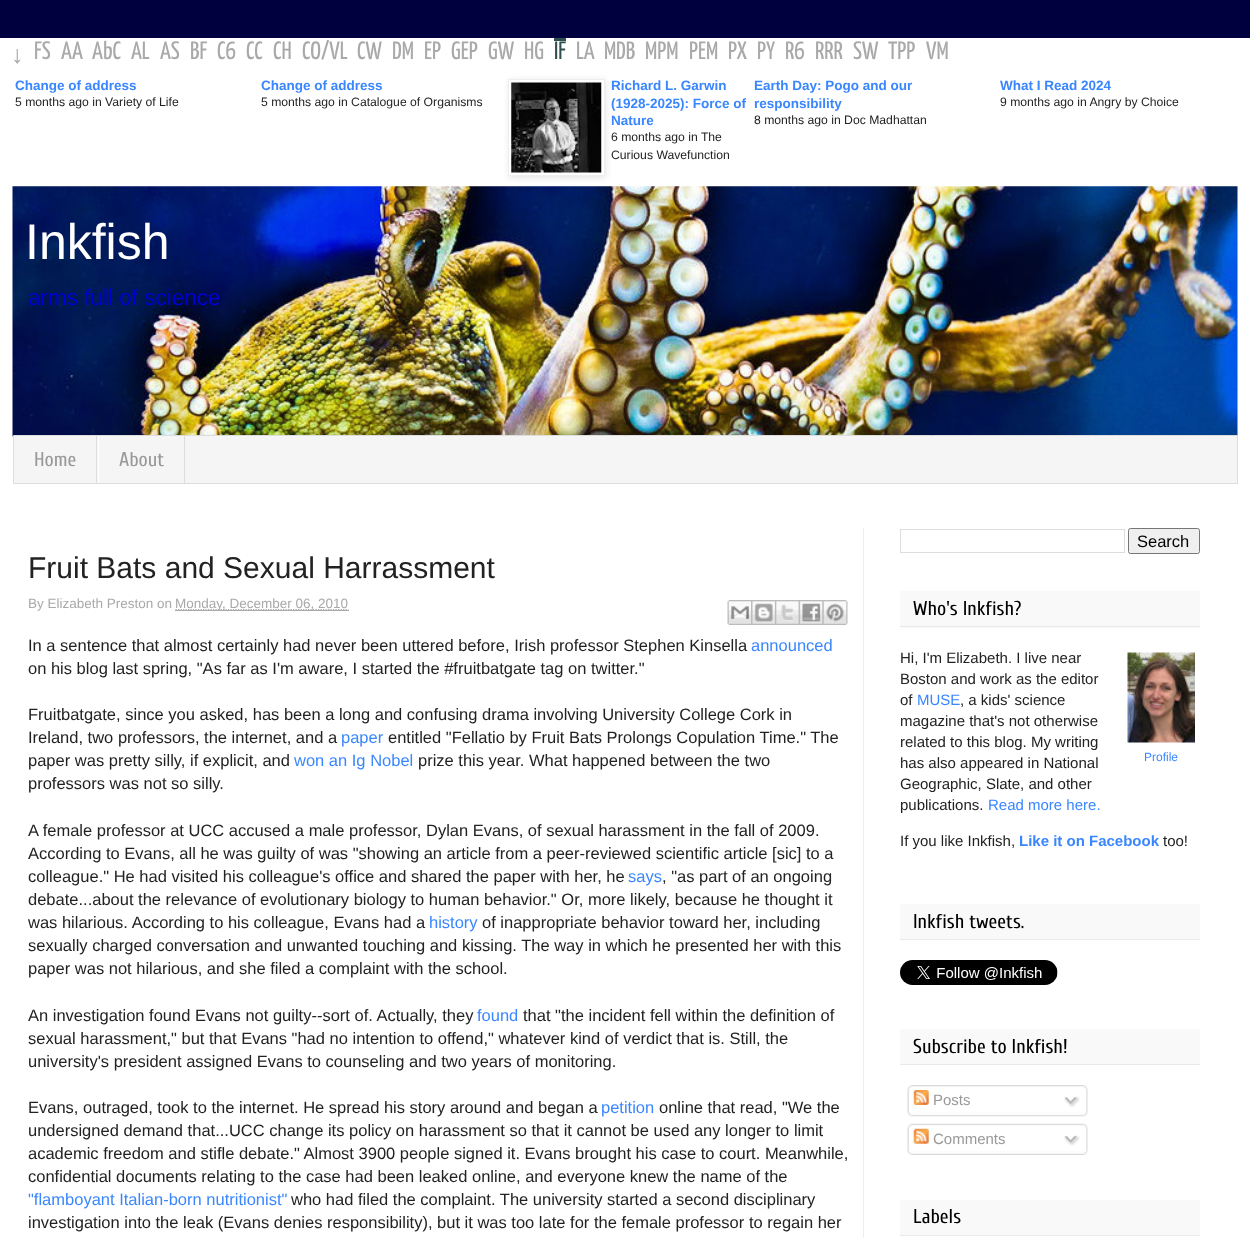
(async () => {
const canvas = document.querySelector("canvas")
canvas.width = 1250
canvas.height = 1238
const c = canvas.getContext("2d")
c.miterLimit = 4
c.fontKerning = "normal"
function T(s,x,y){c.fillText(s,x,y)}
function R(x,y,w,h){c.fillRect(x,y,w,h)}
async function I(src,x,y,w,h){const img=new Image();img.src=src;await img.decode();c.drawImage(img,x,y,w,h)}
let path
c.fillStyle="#00003f"
R(0,0,1250,1238)
c.fillStyle="#fff"
R(0,38,1250,1200)
c.font="25px Liberation Serif"
c.fillStyle="#a9a9a9"
T("↓",11,63)
c.font="200 25px Yanone Kaffeesatz"
T("FS",34,59)
T("AA",61,59)
T("AbC",92,59)
T("AL",131,59)
T("AS",160,59)
T("BF",190,59)
T("C6",217,59)
T("CC",246,59)
T("CH",273,59)
T("CO/VL",302,59)
T("CW",357,59)
T("DM",392,59)
T("EP",424,59)
T("GEP",451,59)
T("GW",488,59)
T("HG",524,59)
c.fillStyle="#2f4f4f"
T("IF",554,59)
R(554,38,12,3)
c.fillStyle="#a9a9a9"
T("LA",576,59)
T("MDB",604,59)
T("MPM",645,59)
T("PEM",689,59)
T("PX",728,59)
T("PY",757,59)
T("R6",785,59)
T("RRR",815,59)
T("SW",853,59)
T("TPP",888,59)
T("VM",926,59)
c.font="bold 13.5px Liberation Sans"
c.fillStyle="#3986ff"
T("Change of address",15,90)
c.font="12.2px Liberation Sans"
c.fillStyle="#222"
T("5 months ago in Variety of Life",15,106)
c.font="bold 13.5px Liberation Sans"
c.fillStyle="#3986ff"
T("Change of address",261,90)
c.font="12.2px Liberation Sans"
c.fillStyle="#222"
T("5 months ago in Catalogue of Organisms",261,106)
c.save()
path = new Path2D("M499 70h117v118h-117zm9 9h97v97h-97z")
c.clip(path,"evenodd")
c.fillStyle="#0000001a"
c.filter="blur(3px)"
c.beginPath()
c.rect(509,80,97,98)
c.fill()
c.filter="none"
c.restore()
c.strokeStyle="#eee"
c.strokeRect(508.5,79.5,96,96)
await I("1.png",511,82,91,91)
c.font="bold 13.5px Liberation Sans"
c.fillStyle="#3986ff"
T("Richard L. Garwin",611,90)
T("(1928-2025): Force of",611,108)
T("Nature",611,125)
c.font="12.2px Liberation Sans"
c.fillStyle="#222"
T("6 months ago in The",611,141)
T("Curious Wavefunction",611,159)
c.font="bold 13.5px Liberation Sans"
c.fillStyle="#3986ff"
T("Earth Day: Pogo and our",754,90)
T("responsibility",754,108)
c.font="12.2px Liberation Sans"
c.fillStyle="#222"
T("8 months ago in Doc Madhattan",754,124)
c.font="bold 13.5px Liberation Sans"
c.fillStyle="#3986ff"
T("What I Read 2024",1000,90)
c.font="12.2px Liberation Sans"
c.fillStyle="#222"
T("9 months ago in Angry by Choice",1000,106)
await I("2.png",12,186,1226,251)
c.font="50px Liberation Sans"
c.fillStyle="#fff"
T("Inkfish",25,259)
c.font="22.5px Liberation Sans"
c.fillStyle="#0000d0"
T("arms full of science",28,305)
c.fillStyle="#f5f5f5"
c.beginPath()
c.rect(13.5,435.5,1224,48)
c.fill()
c.strokeStyle="#ddd"
c.stroke()
c.fillStyle="#ddd"
R(96,436,1,47)
c.font="20px Cuprum"
c.fillStyle="#999"
T("Home",34,466)
c.fillStyle="#ddd"
R(184,436,1,47)
c.fillStyle="#fff"
R(98,436,1,47)
c.fillStyle="#999"
T("About",119,466)
c.fillStyle="#eee"
R(863,528,1,710)
c.font="30px Liberation Sans"
c.fillStyle="#222"
T("Fruit Bats and Sexual Harrassment",28,578)
c.font="13.5px Liberation Sans"
c.fillStyle="#a9a9a9"
T("By Elizabeth Preston on",28,608)
R(175,610,174,1)
path = new Path2D("M175.5 609.5h173")
c.strokeStyle="#a9a9a9"
c.lineWidth=1.2
c.setLineDash([1.25,1.25])
c.stroke(path)
T("Monday, December 06, 2010",175,608)
await I("3.png",727,600,25,25)
await I("4.png",751,600,24,25)
await I("5.png",775,600,24,25)
await I("6.png",798,600,25,25)
await I("7.png",822,600,26,25)
c.font="16.5px Liberation Sans"
c.fillStyle="#222"
T("In a sentence that almost certainly had never been uttered before, Irish professor Stephen Kinsella",28,651)
c.fillStyle="#3986ff"
T("announced",751,651)
c.fillStyle="#222"
T("on his blog last spring, \"As far as I'm aware, I started the #fruitbatgate tag on twitter.\"",28,674)
T("Fruitbatgate, since you asked, has been a long and confusing drama involving University College Cork in",28,720)
T("Ireland, two professors, the internet, and a",28,743)
c.fillStyle="#3986ff"
T("paper",341,743)
c.fillStyle="#222"
T("entitled \"Fellatio by Fruit Bats Prolongs Copulation Time.\" The",388,743)
T("paper was pretty silly, if explicit, and",28,766)
c.fillStyle="#3986ff"
T("won an Ig Nobel",294,766)
c.fillStyle="#222"
T("prize this year. What happened between the two",418,766)
T("professors was not so silly.",28,789)
T("A female professor at UCC accused a male professor, Dylan Evans, of sexual harassment in the fall of 2009.",28,836)
T("According to Evans, all he was guilty of was \"showing an article from a peer-reviewed scientific article [sic] to a",28,859)
T("colleague.\" He had visited his colleague's office and shared the paper with her, he",28,882)
c.fillStyle="#3986ff"
T("says",628,882)
c.fillStyle="#222"
T(", \"as part of an ongoing",662,882)
T("debate...about the relevance of evolutionary biology to human behavior.\" Or, more likely, because he thought it",28,905)
T("was hilarious. According to his colleague, Evans had a",28,928)
c.fillStyle="#3986ff"
T("history",429,928)
c.fillStyle="#222"
T("of inappropriate behavior toward her, including",482,928)
T("sexually charged conversation and unwanted touching and kissing. The way in which he presented her with this",28,951)
T("paper was not hilarious, and she filed a complaint with the school.",28,974)
T("An investigation found Evans not guilty--sort of. Actually, they",28,1021)
c.fillStyle="#3986ff"
T("found",477,1021)
c.fillStyle="#222"
T("that \"the incident fell within the definition of",523,1021)
T("sexual harassment,\" but that Evans \"had no intention to offend,\" whatever kind of verdict that is. Still, the",28,1044)
T("university's president assigned Evans to counseling and two years of monitoring.",28,1067)
T("Evans, outraged, took to the internet. He spread his story around and began a",28,1113)
c.fillStyle="#3986ff"
T("petition",601,1113)
c.fillStyle="#222"
T("online that read, \"We the",659,1113)
T("undersigned demand that...UCC change its policy on harassment so that it cannot be used any longer to limit",28,1136)
T("academic freedom and stifle debate.\" Almost 3900 people signed it. Evans brought his case to court. Meanwhile,",28,1159)
T("confidential documents relating to the case had been leaked online, and everyone knew the name of the",28,1182)
c.fillStyle="#3986ff"
T("\"flamboyant Italian-born nutritionist\"",28,1205)
c.fillStyle="#222"
T("who had filed the complaint. The university started a second disciplinary",291,1205)
T("investigation into the leak (Evans denies responsibility), but it was too late for the female professor to regain her",28,1228)
c.strokeStyle="#ddd"
c.lineWidth=1
c.setLineDash([])
c.strokeRect(900.5,529.5,224,23)
c.fillStyle="#efefef"
c.beginPath()
c.roundRect(1128.5,528.5,71,25,2)
c.fill()
c.strokeStyle="#767676"
c.stroke()
c.fillStyle="#000"
T("Search",1137,547)
c.fillStyle="#f9f9f9"
R(900,591,300,37)
c.fillStyle="#e9e9e9"
R(900,626,300,1)
c.font="20px Cuprum"
c.fillStyle="#000"
T("Who's Inkfish?",913,615)
c.font="15px Liberation Sans"
c.fillStyle="#222"
T("Hi, I'm Elizabeth. I live near",900,663)
T("Boston and work as the editor",900,684)
T("of",900,705)
c.fillStyle="#3986ff"
T("MUSE",917,705)
c.fillStyle="#222"
T(", a kids' science",960,705)
T("magazine that's not otherwise",900,726)
T("related to this blog. My writing",900,747)
T("has also appeared in National",900,768)
await I("8.png",1127,652,68,91)
c.font="12px Liberation Sans"
c.fillStyle="#3986ff"
T("Profile",1144,761)
c.font="15px Liberation Sans"
c.fillStyle="#222"
T("Geographic, Slate, and other",900,789)
T("publications.",900,810)
c.fillStyle="#3986ff"
T("Read more here.",988,810)
c.fillStyle="#222"
T("If you like Inkfish,",900,846)
c.font="bold 15px Liberation Sans"
c.fillStyle="#3986ff"
T("Like it on Facebook",1019,846)
c.font="15px Liberation Sans"
c.fillStyle="#222"
T("too!",1163,846)
c.fillStyle="#f9f9f9"
R(900,904,300,35)
c.fillStyle="#e9e9e9"
R(900,939,300,1)
c.font="20px Cuprum"
c.fillStyle="#000"
T("Inkfish tweets.",913,928)
await I("9.png",900,960,158,25)
c.fillStyle="#f9f9f9"
R(900,1029,300,35)
c.fillStyle="#e9e9e9"
R(900,1064,300,1)
c.fillStyle="#000"
T("Subscribe to Inkfish!",913,1053)
await I("10.png",907,1085,181,28)
await I("11.png",913,1090,16,15)
c.font="15px Liberation Sans"
c.fillStyle="#999"
T("Posts",933,1105)
await I("12.png",1064,1096,16,12)
await I("13.png",907,1112,181,5)
await I("14.png",907,1123,181,29)
await I("15.png",913,1128,16,16)
T("Comments",933,1144)
await I("16.png",1064,1135,16,11)
await I("17.png",907,1151,181,4)
c.fillStyle="#f9f9f9"
R(900,1200,300,35)
c.fillStyle="#e9e9e9"
R(900,1235,300,1)
c.font="20px Cuprum"
c.fillStyle="#000"
T("Labels",913,1223)
})()
